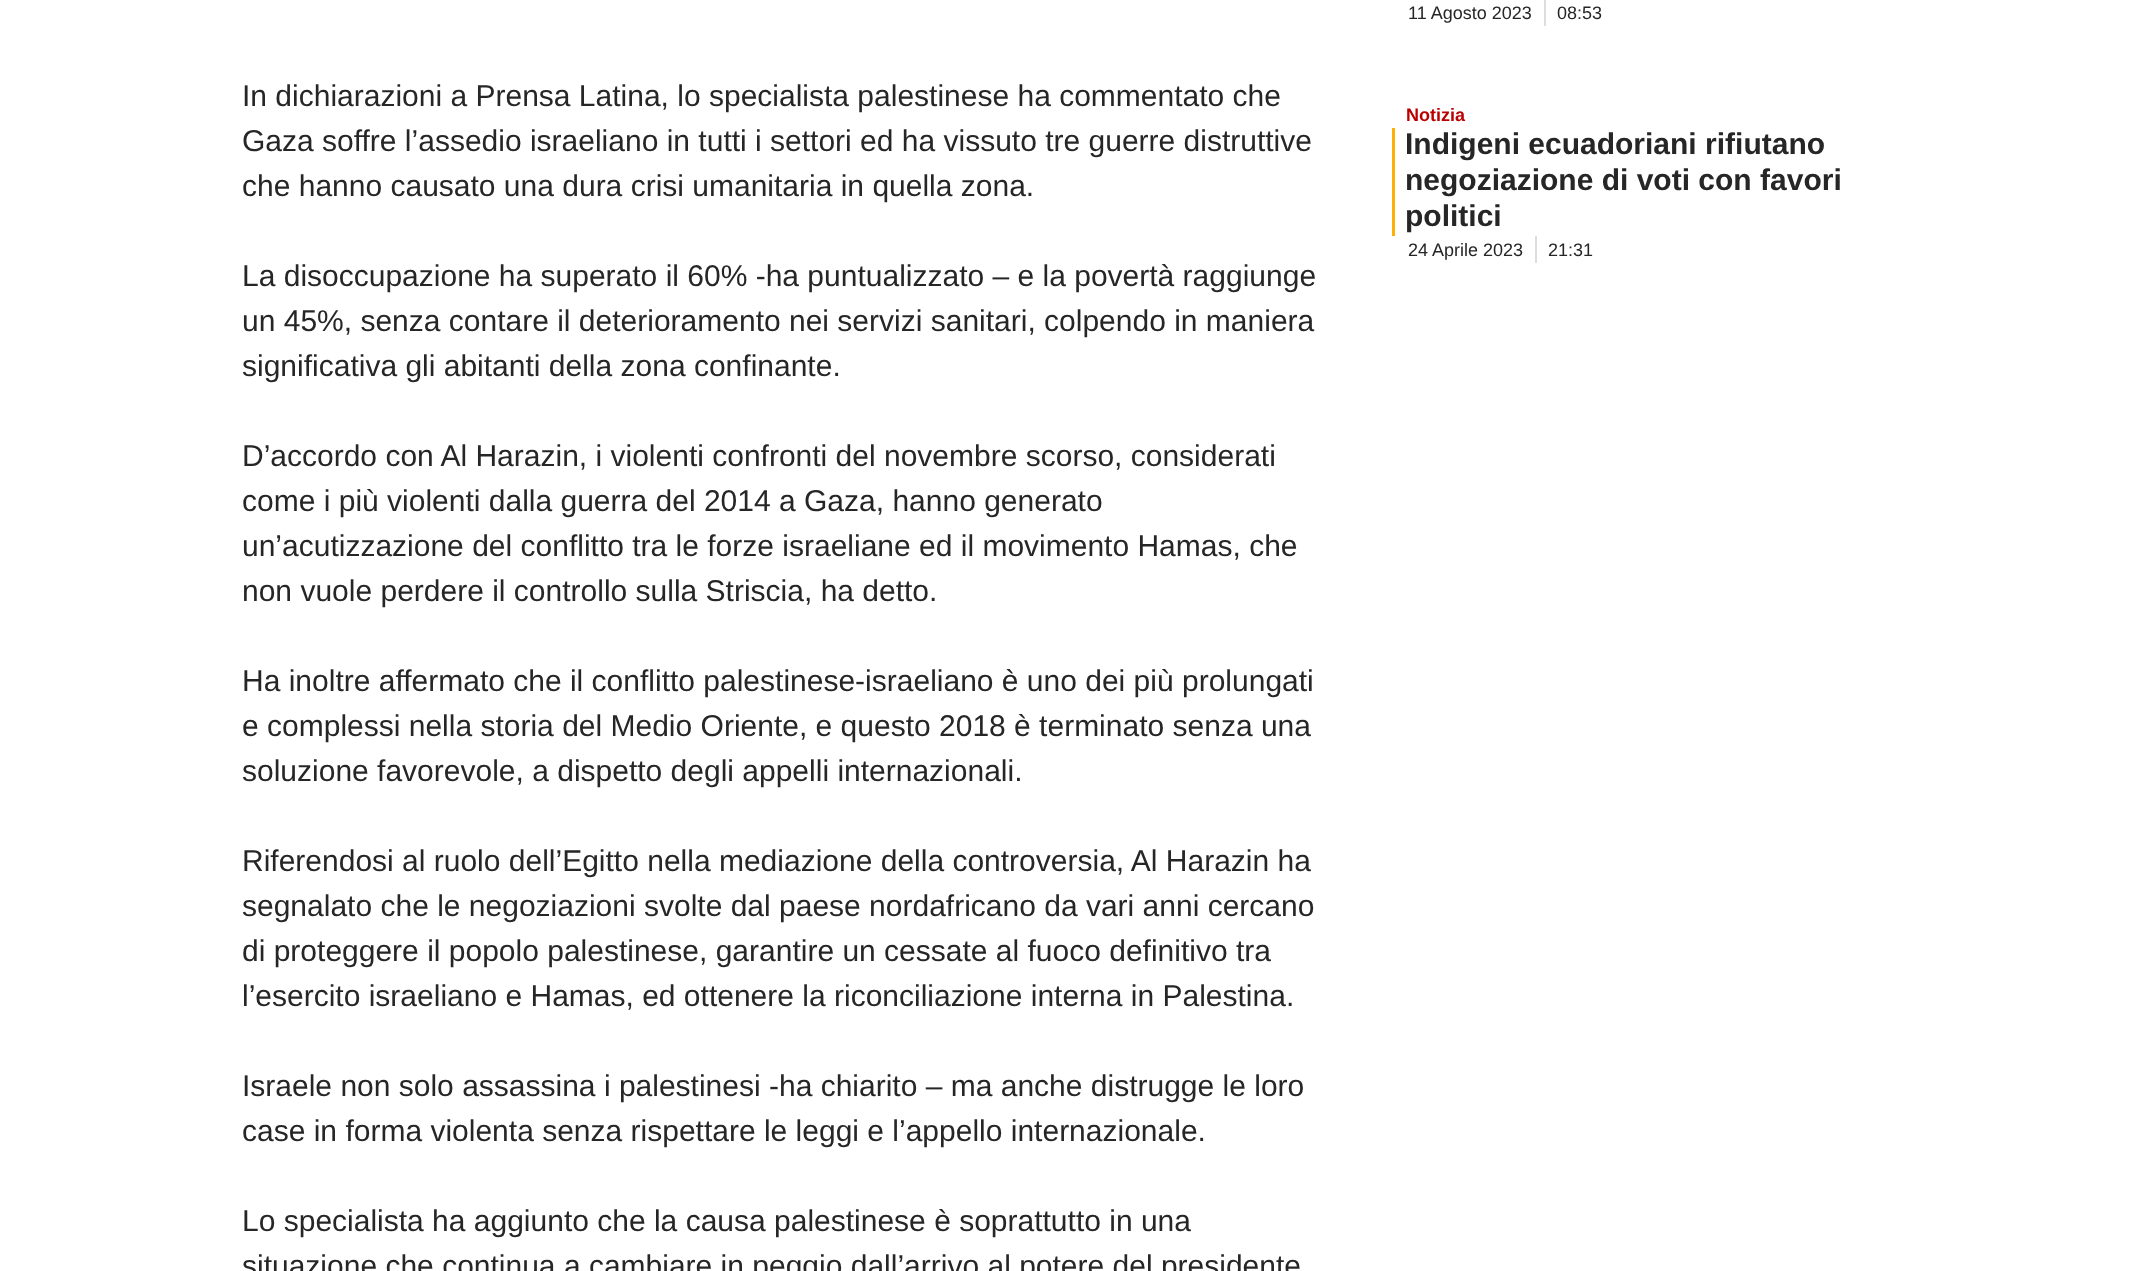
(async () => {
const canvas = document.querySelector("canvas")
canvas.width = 2134
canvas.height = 1271
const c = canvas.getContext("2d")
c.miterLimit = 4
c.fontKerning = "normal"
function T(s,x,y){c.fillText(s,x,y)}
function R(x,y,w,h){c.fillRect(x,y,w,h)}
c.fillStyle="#fff"
R(0,0,2134,1271)
c.font="30px Liberation Sans"
c.fillStyle="#262626"
T("In dichiarazioni a Prensa Latina, lo specialista palestinese ha commentato che",242,106)
T("Gaza soffre l’assedio israeliano in tutti i settori ed ha vissuto tre guerre distruttive",242,151)
T("che hanno causato una dura crisi umanitaria in quella zona.",242,196)
T("La disoccupazione ha superato il 60% -ha puntualizzato – e la povertà raggiunge",242,286)
T("un 45%, senza contare il deterioramento nei servizi sanitari, colpendo in maniera",242,331)
T("significativa gli abitanti della zona confinante.",242,376)
T("D’accordo con Al Harazin, i violenti confronti del novembre scorso, considerati",242,466)
T("come i più violenti dalla guerra del 2014 a Gaza, hanno generato",242,511)
T("un’acutizzazione del conflitto tra le forze israeliane ed il movimento Hamas, che",242,556)
T("non vuole perdere il controllo sulla Striscia, ha detto.",242,601)
T("Ha inoltre affermato che il conflitto palestinese-israeliano è uno dei più prolungati",242,691)
T("e complessi nella storia del Medio Oriente, e questo 2018 è terminato senza una",242,736)
T("soluzione favorevole, a dispetto degli appelli internazionali.",242,781)
T("Riferendosi al ruolo dell’Egitto nella mediazione della controversia, Al Harazin ha",242,871)
T("segnalato che le negoziazioni svolte dal paese nordafricano da vari anni cercano",242,916)
T("di proteggere il popolo palestinese, garantire un cessate al fuoco definitivo tra",242,961)
T("l’esercito israeliano e Hamas, ed ottenere la riconciliazione interna in Palestina.",242,1006)
T("Israele non solo assassina i palestinesi -ha chiarito – ma anche distrugge le loro",242,1096)
T("case in forma violenta senza rispettare le leggi e l’appello internazionale.",242,1141)
T("Lo specialista ha aggiunto che la causa palestinese è soprattutto in una",242,1231)
T("situazione che continua a cambiare in peggio dall’arrivo al potere del presidente",242,1276)
c.font="18px Liberation Sans"
T("11 Agosto 2023",1408,19)
c.fillStyle="#ddd"
R(1544,0,2,26)
c.fillStyle="#262626"
T("08:53",1557,19)
c.font="bold 18px Liberation Sans"
c.fillStyle="#b00"
T("Notizia",1406,121)
c.fillStyle="#ffaf06"
R(1392,128,3,108)
c.font="bold 30px Liberation Sans"
c.fillStyle="#262626"
T("Indigeni ecuadoriani rifiutano",1405,154)
T("negoziazione di voti con favori",1405,190)
T("politici",1405,226)
c.font="18px Liberation Sans"
T("24 Aprile 2023",1408,256)
c.fillStyle="#ddd"
R(1535,236,2,27)
c.fillStyle="#262626"
T("21:31",1548,256)
})()
